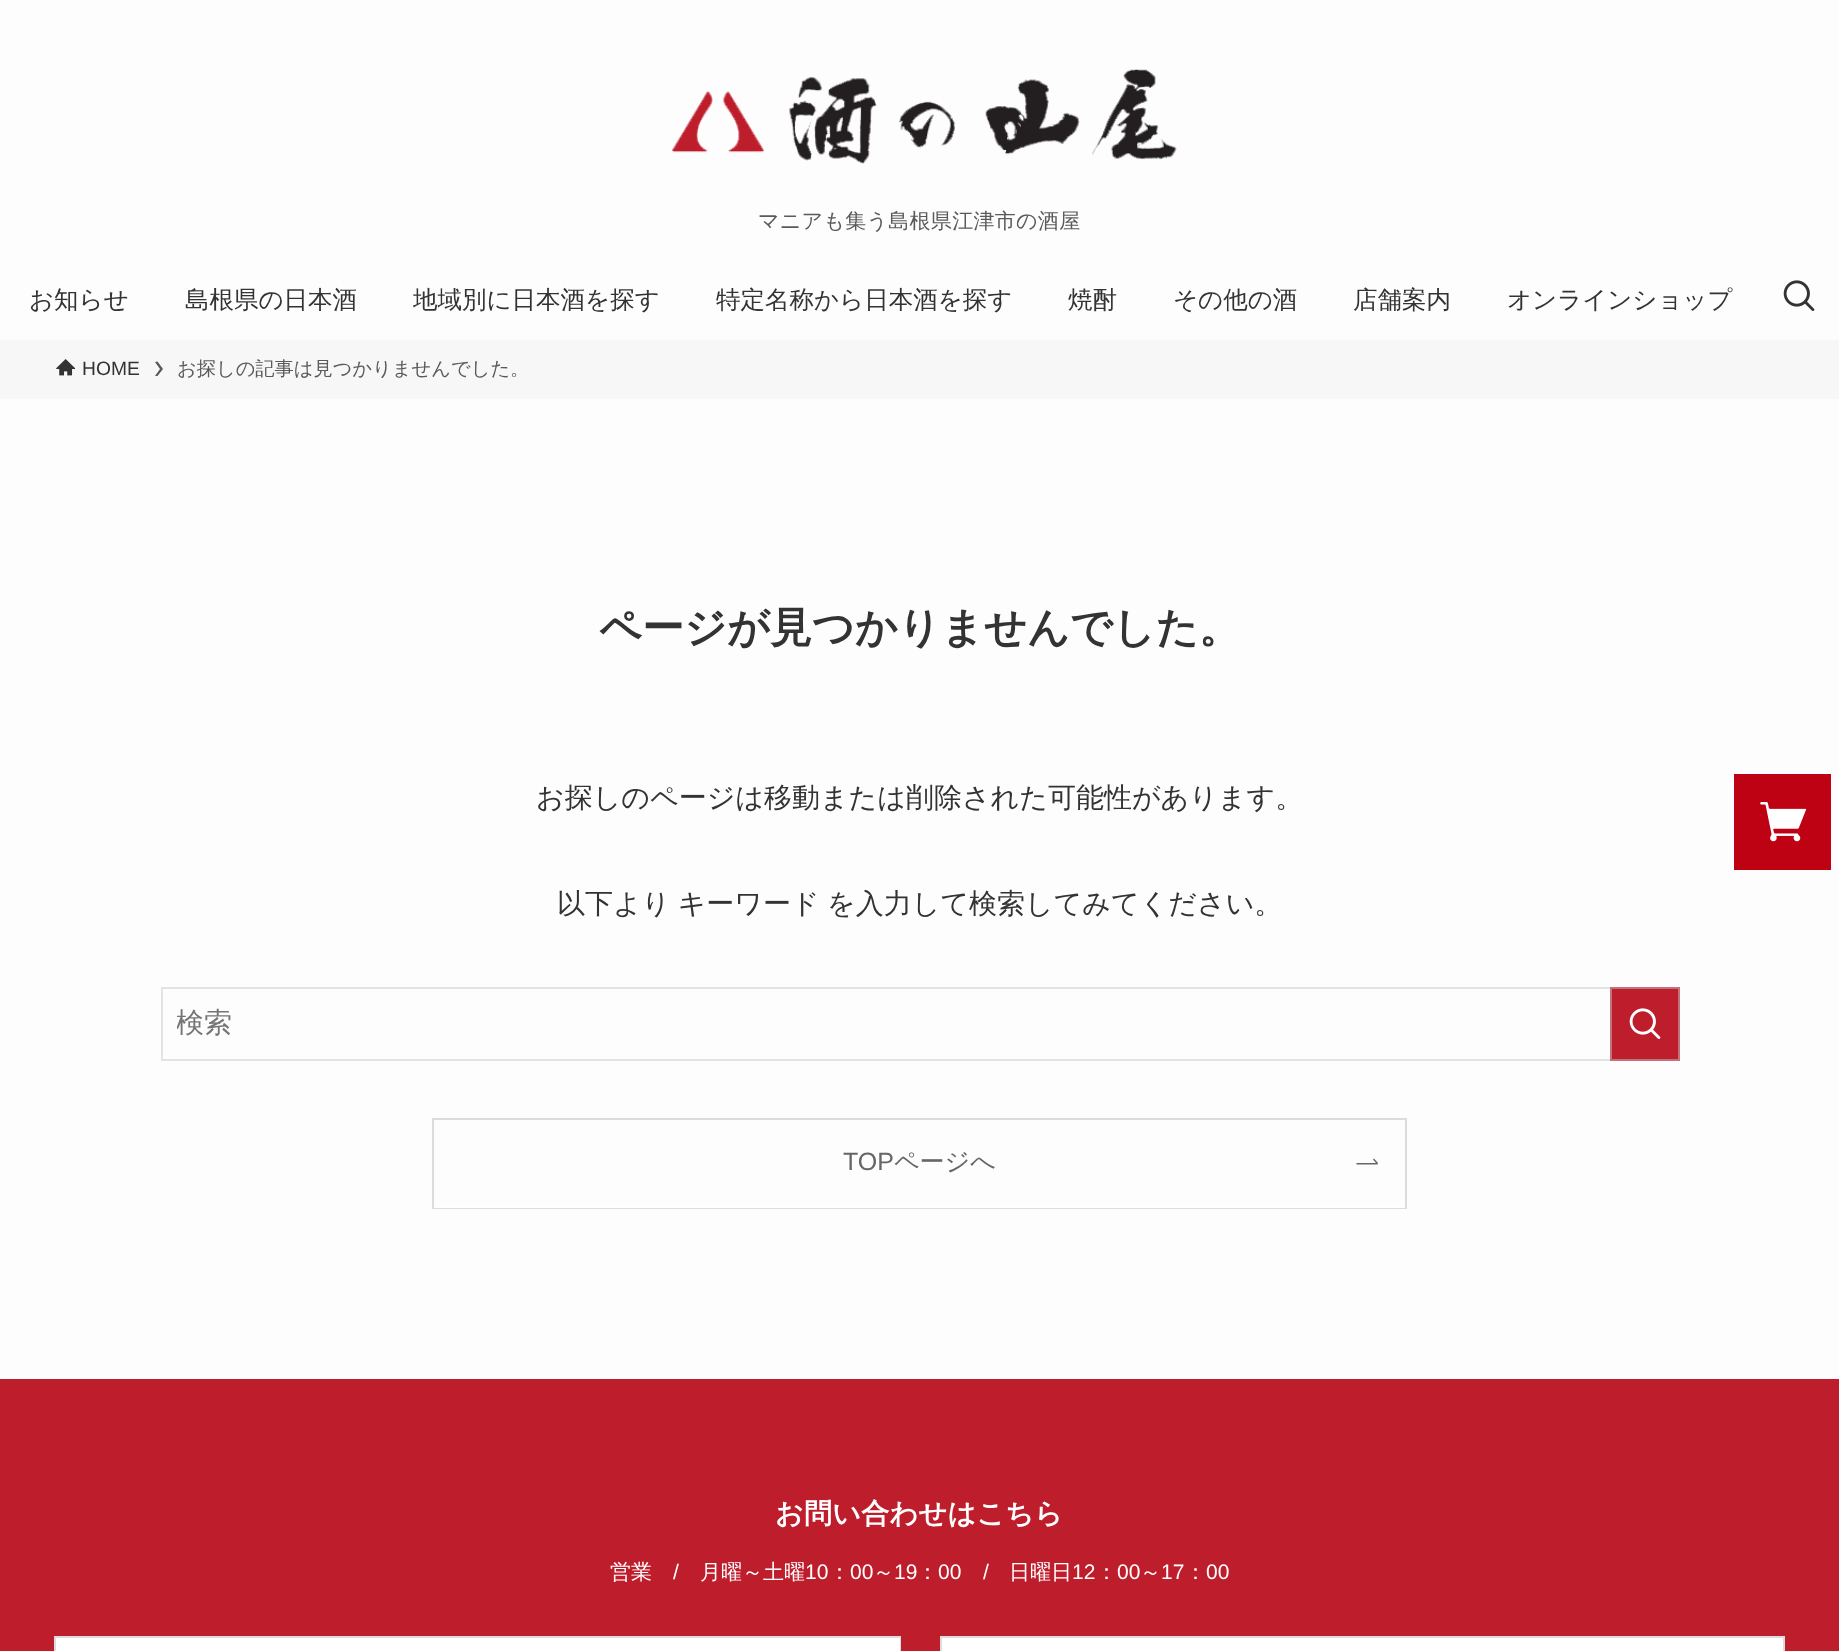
(async () => {
const canvas = document.querySelector("canvas")
canvas.width = 1839
canvas.height = 1651
const c = canvas.getContext("2d")
c.miterLimit = 4
c.fontKerning = "normal"
function T(s,x,y){c.fillText(s,x,y)}
function R(x,y,w,h){c.fillRect(x,y,w,h)}
async function I(src,x,y,w,h){const img=new Image();img.src=src;await img.decode();c.drawImage(img,x,y,w,h)}
let path
c.fillStyle="#fdfdfd"
R(0,0,1839,1651)
await I("1.png",672,69,505,95)
c.letterSpacing="0.3px"
c.font="500 21px WenQuanYi Zen Hei"
c.fillStyle="#5a5a5a"
T("マニアも集う島根県江津市の酒屋",758,228)
c.letterSpacing="0px"
c.font="500 24.5px WenQuanYi Zen Hei"
c.fillStyle="#333"
T("お知らせ",29,308)
T("島根県の日本酒",185,308)
T("地域別に日本酒を探す",413,308)
T("特定名称から日本酒を探す",716,308)
T("焼酎",1068,308)
T("その他の酒",1173,308)
T("店舗案内",1353,308)
T("オンラインショップ",1507,308)
await I("2.png",1783,280,32,31)
c.fillStyle="#f7f7f7"
R(0,340,1839,59)
await I("3.png",56,359,20,17)
c.font="19.25px Liberation Sans"
c.fillStyle="#333"
T("HOME",82,375)
c.fillStyle="#5a5a5a"
path = new Path2D("M157.5 361.5l-2.5 .5l5 7l-5 7h2.5l5.5-7z")
c.fill(path)
c.font="500 19.25px WenQuanYi Zen Hei"
T("お探しの記事は見つかりませんでした。",177,375)
c.font="bold 42px WenQuanYi Zen Hei"
c.fillStyle="#333"
T("ページが見つかりませんでした。",599,642)
c.font="500 28px WenQuanYi Zen Hei"
T("お探しのページは移動または削除された可能性があります。",536,807)
c.wordSpacing="-1px"
T("以下より キーワード を入力して検索してみてください。",557,913)
c.strokeStyle="#e3e3e3"
c.lineWidth=2
c.strokeRect(162,988,1517,72)
c.save()
c.beginPath()
c.rect(177,1006,1424,37)
c.clip()
c.wordSpacing="0px"
c.fillStyle="#757575"
T("検索",176,1032)
c.restore()
c.fillStyle="#be1d2c"
c.beginPath()
c.rect(1611,988,68,72)
c.fill()
c.strokeStyle="#c3727a"
c.stroke()
await I("4.png",1629,1008,32,31)
c.strokeStyle="#dcdcdc"
c.strokeRect(433,1119,973,89)
c.fillStyle="#fff"
R(434,1207,971,1)
c.wordSpacing="0px"
c.font="25px Liberation Sans"
c.fillStyle="#666"
T("TOP",843,1170)
c.font="500 25px WenQuanYi Zen Hei"
T("ページへ",894,1170)
path = new Path2D("M1377.5 1164.5h-21v-1.5h19.5l-3-3.5l1-1l4 4.5z")
c.fill(path)
c.fillStyle="#be1d2c"
R(0,1379,1839,272)
c.letterSpacing="0.3px"
c.font="bold 28px WenQuanYi Zen Hei"
c.fillStyle="#fff"
T("お問い合わせはこちら",775,1523)
c.letterSpacing="0px"
c.font="500 21px WenQuanYi Zen Hei"
T("営業",610,1579)
c.font="21px Liberation Sans"
T("/",673,1579)
c.font="500 21px WenQuanYi Zen Hei"
T("月曜～土曜",700,1579)
c.font="21px Liberation Sans"
T("10",805,1579)
c.font="500 21px WenQuanYi Zen Hei"
T("：",829,1579)
c.font="21px Liberation Sans"
T("00",850,1579)
c.font="500 21px WenQuanYi Zen Hei"
T("～",873,1579)
c.font="21px Liberation Sans"
T("19",894,1579)
c.font="500 21px WenQuanYi Zen Hei"
T("：",917,1579)
c.font="21px Liberation Sans"
T("00",938,1579)
T("/",983,1579)
c.font="500 21px WenQuanYi Zen Hei"
T("日曜日",1009,1579)
c.font="21px Liberation Sans"
T("12",1072,1579)
c.font="500 21px WenQuanYi Zen Hei"
T("：",1096,1579)
c.font="21px Liberation Sans"
T("00",1117,1579)
c.font="500 21px WenQuanYi Zen Hei"
T("～",1140,1579)
c.font="21px Liberation Sans"
T("17",1161,1579)
c.font="500 21px WenQuanYi Zen Hei"
T("：",1185,1579)
c.font="21px Liberation Sans"
T("00",1206,1579)
c.strokeRect(55,1637,845,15)
R(56,1638,844,13)
c.strokeRect(941,1637,843,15)
R(942,1638,841,13)
c.fillStyle="#bf0114"
R(1734,774,97,96)
await I("5.png",1760,802,47,40)
})()
